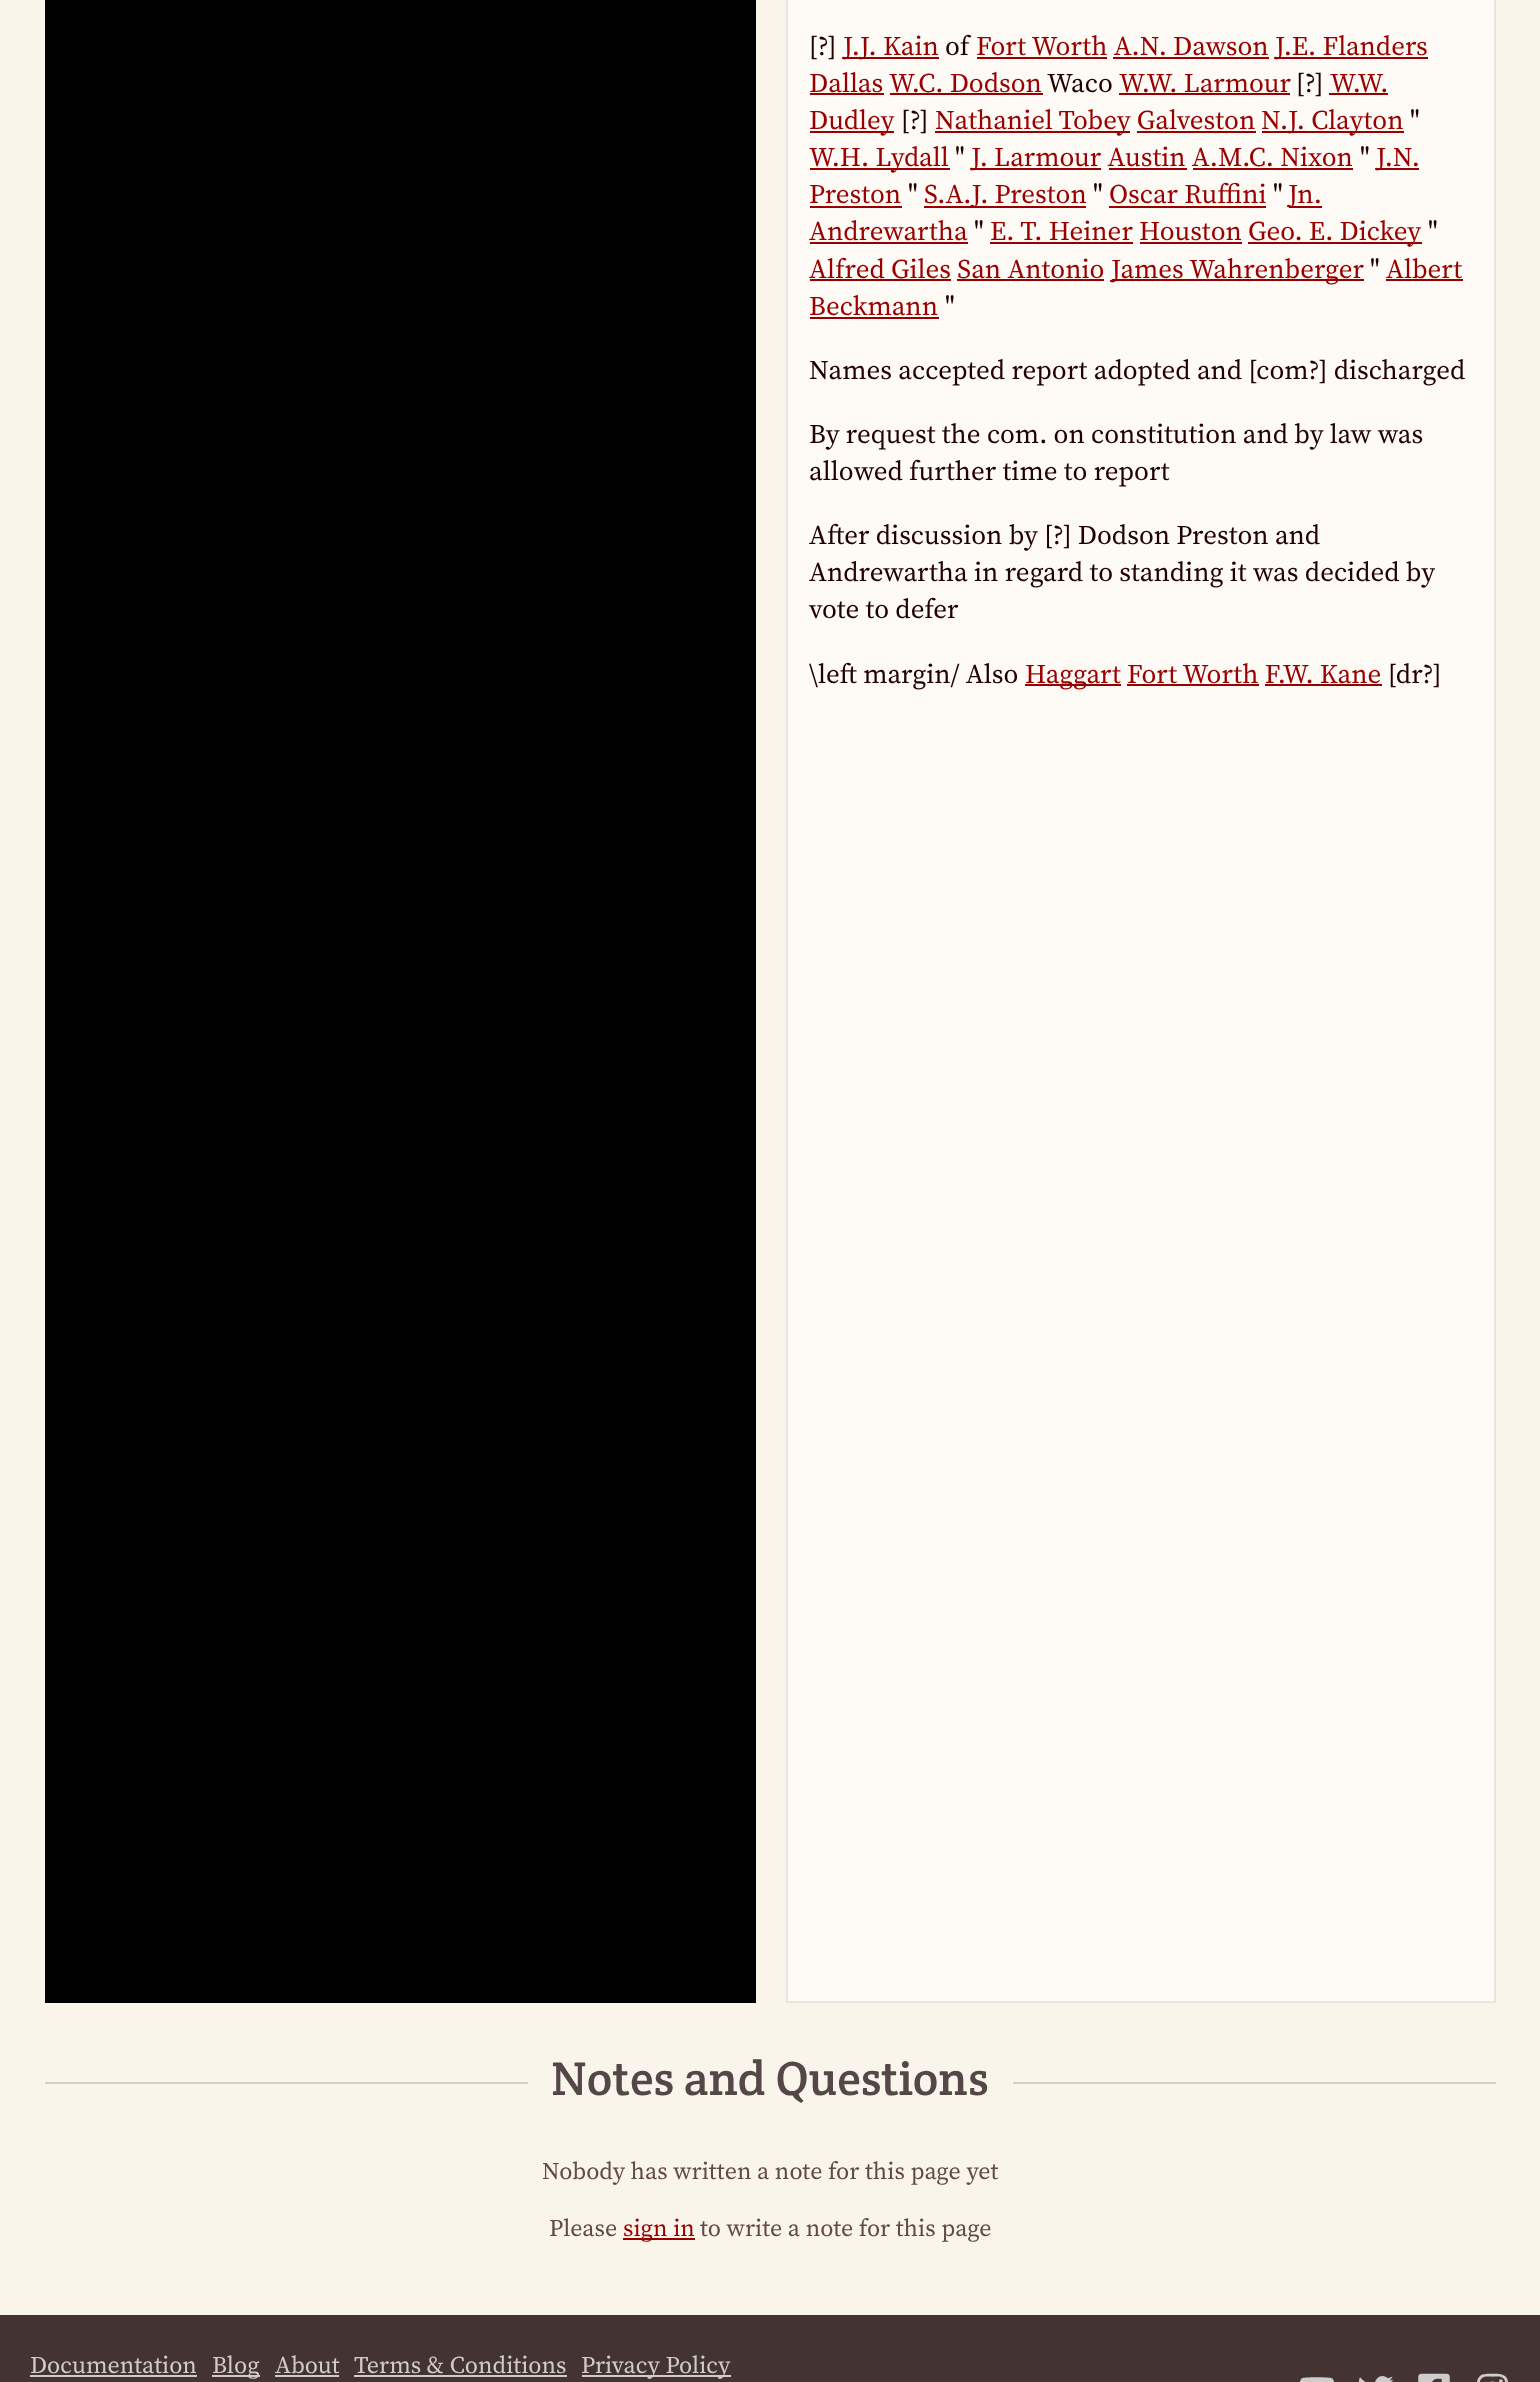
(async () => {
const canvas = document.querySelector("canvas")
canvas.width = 1540
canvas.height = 2382
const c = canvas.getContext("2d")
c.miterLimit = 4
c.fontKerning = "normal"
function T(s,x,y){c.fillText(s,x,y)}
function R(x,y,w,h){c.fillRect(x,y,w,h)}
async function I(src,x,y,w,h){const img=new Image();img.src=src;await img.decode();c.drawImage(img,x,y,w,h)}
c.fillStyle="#faf5eb"
R(0,0,1540,2382)
c.fillStyle="#000"
R(45,0,711,2003)
c.fillStyle="#fefaf5"
c.beginPath()
c.rect(787,-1,708,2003)
c.fill()
c.strokeStyle="#eae5df"
c.lineWidth=2
c.stroke()
c.font="27px Source Serif Pro"
c.fillStyle="#200"
T("[?]",809,55)
c.fillStyle="#900"
R(843,57,96,2)
T("J.J. Kain",843,55)
c.fillStyle="#200"
T("of",945,55)
c.fillStyle="#900"
T("Fort Worth A.N. Dawson",976,55)
R(977,57,130,2)
R(1275,57,153,2)
T("J.E. Flanders",1275,55)
R(1113,57,156,2)
T("Dallas",809,92)
R(810,93,74,2)
T("W.C. Dodson",889,92)
R(890,93,153,2)
c.fillStyle="#200"
T("Waco",1047,92)
c.fillStyle="#900"
T("W.W. Larmour",1119,92)
R(1119,93,171,2)
c.fillStyle="#200"
T("[?]",1296,92)
c.fillStyle="#900"
T("W.W.",1330,92)
R(1329,93,59,2)
R(810,131,84,2)
T("Dudley",809,129)
c.fillStyle="#200"
T("[?]",901,129)
c.fillStyle="#900"
R(935,131,195,2)
T("Nathaniel Tobey Galveston",935,129)
R(1262,131,142,2)
T("N.J. Clayton",1261,129)
c.fillStyle="#200"
T("\"",1410,129)
c.fillStyle="#900"
R(1137,131,119,2)
R(810,168,140,2)
T("W.H. Lydall",809,166)
c.fillStyle="#200"
T("\"",955,166)
c.fillStyle="#900"
R(972,168,129,2)
T("J. Larmour Austin A.M.C. Nixon",971,166)
c.fillStyle="#200"
T("\"",1360,166)
c.fillStyle="#900"
R(1376,168,43,2)
T("J.N.",1376,166)
R(1109,168,78,2)
R(1193,168,160,2)
T("Preston",809,203)
R(810,206,92,2)
c.fillStyle="#200"
T("\"",908,203)
c.fillStyle="#900"
R(924,206,162,2)
T("S.A.J. Preston",924,203)
c.fillStyle="#200"
T("\"",1093,203)
c.fillStyle="#900"
T("Oscar Ruffini",1109,203)
R(1109,206,157,2)
c.fillStyle="#200"
T("\"",1273,203)
c.fillStyle="#900"
R(1289,206,33,2)
T("Jn.",1288,203)
T("Andrewartha",809,240)
R(810,242,158,2)
c.fillStyle="#200"
T("\"",974,240)
c.fillStyle="#900"
T("E. T. Heiner Houston",990,240)
R(990,242,143,2)
R(1248,242,174,2)
T("Geo. E. Dickey",1248,240)
c.fillStyle="#200"
T("\"",1428,240)
c.fillStyle="#900"
R(1140,242,102,2)
T("Alfred Giles San Antonio",809,278)
R(810,279,141,2)
R(1112,279,252,2)
T("James Wahrenberger",1111,278)
c.fillStyle="#200"
T("\"",1370,278)
c.fillStyle="#900"
T("Albert",1386,278)
R(1386,279,77,2)
R(957,279,147,2)
T("Beckmann",809,315)
R(810,317,129,2)
c.fillStyle="#200"
T("\"",945,315)
T("Names accepted report adopted and [com?] discharged",809,379)
T("By request the com. on constitution and by law was",809,443)
T("allowed further time to report",809,480)
T("After discussion by [?] Dodson Preston and",809,544)
T("Andrewartha in regard to standing it was decided by",809,581)
T("vote to defer",809,618)
T("\\left margin/ Also",809,683)
c.fillStyle="#900"
R(1025,684,96,2)
T("Haggart Fort Worth F.W. Kane",1025,683)
c.fillStyle="#200"
T("[dr?]",1388,683)
c.fillStyle="#900"
R(1127,684,132,2)
R(1265,684,117,2)
c.fillStyle="#d5d0c8"
R(45,2082,483,2)
c.font="48px Crete Round"
c.fillStyle="#554747"
T("Notes and Questions",551,2095)
c.fillStyle="#d5d0c8"
R(1013,2082,483,2)
c.font="24px Source Serif Pro"
c.fillStyle="#634a47"
T("Nobody has written a note for this page yet",542,2179)
T("Please",549,2236)
c.fillStyle="#900"
R(623,2238,72,2)
T("sign in",623,2236)
c.fillStyle="#634a47"
T("to write a note for this page",700,2236)
c.fillStyle="#433"
R(0,2315,1540,67)
c.fillStyle="#d0cccc"
T("Documentation",30,2373)
R(30,2375,167,2)
R(212,2375,48,2)
T("Blog",212,2373)
T("About",275,2373)
R(275,2375,64,2)
T("Terms & Conditions",354,2373)
R(354,2375,213,2)
R(582,2375,149,2)
T("Privacy Policy",581,2373)
await I("1.png",1300,2377,34,5)
await I("2.png",1359,2376,35,6)
await I("3.png",1418,2373,32,9)
await I("4.png",1477,2373,31,9)
})()
